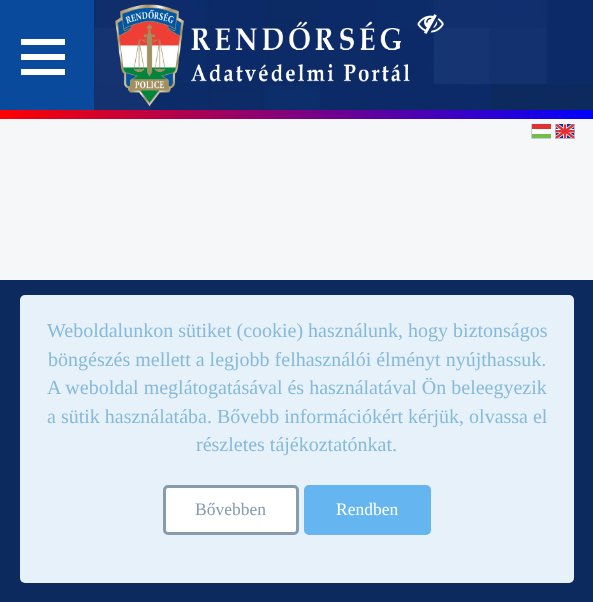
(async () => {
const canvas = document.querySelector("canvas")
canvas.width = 593
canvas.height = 602
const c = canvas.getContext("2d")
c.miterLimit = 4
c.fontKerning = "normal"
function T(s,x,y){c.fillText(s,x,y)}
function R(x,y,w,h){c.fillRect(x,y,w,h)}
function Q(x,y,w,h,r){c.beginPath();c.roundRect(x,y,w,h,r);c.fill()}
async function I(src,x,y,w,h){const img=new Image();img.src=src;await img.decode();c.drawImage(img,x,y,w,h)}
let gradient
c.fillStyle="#f5f7f8"
R(0,0,593,602)
await I("1.png",94,0,499,110)
c.fillStyle="#0a4a9c"
R(0,0,94,110)
c.fillStyle="#fff"
R(21,54,44,6)
R(21,39,44,6)
R(21,69,44,6)
await I("2.png",115,4,295,103)
await I("3.png",417,14,27,20)
gradient = c.createLinearGradient(0,114,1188,114)
gradient.addColorStop(0,"#f00")
gradient.addColorStop(.5,"#00f")
gradient.addColorStop(1,"#f00")
c.fillStyle = gradient
R(0,110,593,9)
c.fillStyle="#c0cfd8"
R(531,124,20,15)
c.fillStyle="#e03232"
R(532,124,19,5)
c.fillStyle="#75bd4a"
R(532,134,19,4)
c.fillStyle="#fff"
R(532,129,19,5)
await I("4.png",555,124,20,15)
c.fillStyle="#0c2a5e"
R(0,280,593,322)
c.fillStyle="#e7f1f9"
Q(20,295,554,288,5)
c.font="20px Liberation Serif"
c.fillStyle="#86bada"
T("Weboldalunkon sütiket (cookie) használunk, hogy biztonságos",47,337)
T("böngészés mellett a legjobb felhasználói élményt nyújthassuk.",48,366)
T("A weboldal meglátogatásával és használatával Ön beleegyezik",47,394)
T("a sütik használatába. Bővebb információkért kérjük, olvassa el",47,423)
T("részletes tájékoztatónkat.",196,451)
c.fillStyle="#fff"
c.beginPath()
c.roundRect(164.5,486.5,133,47,3.5)
c.fill()
c.strokeStyle="#869cad"
c.lineWidth=3
c.stroke()
c.font="17.5px Liberation Serif"
c.fillStyle="#869cad"
T("Bővebben",195,515)
c.fillStyle="#65b6f0"
c.beginPath()
c.roundRect(305.5,486.5,124,47,3.5)
c.fill()
c.strokeStyle="#65b6f0"
c.stroke()
c.fillStyle="#fff"
T("Rendben",336,515)
})()
